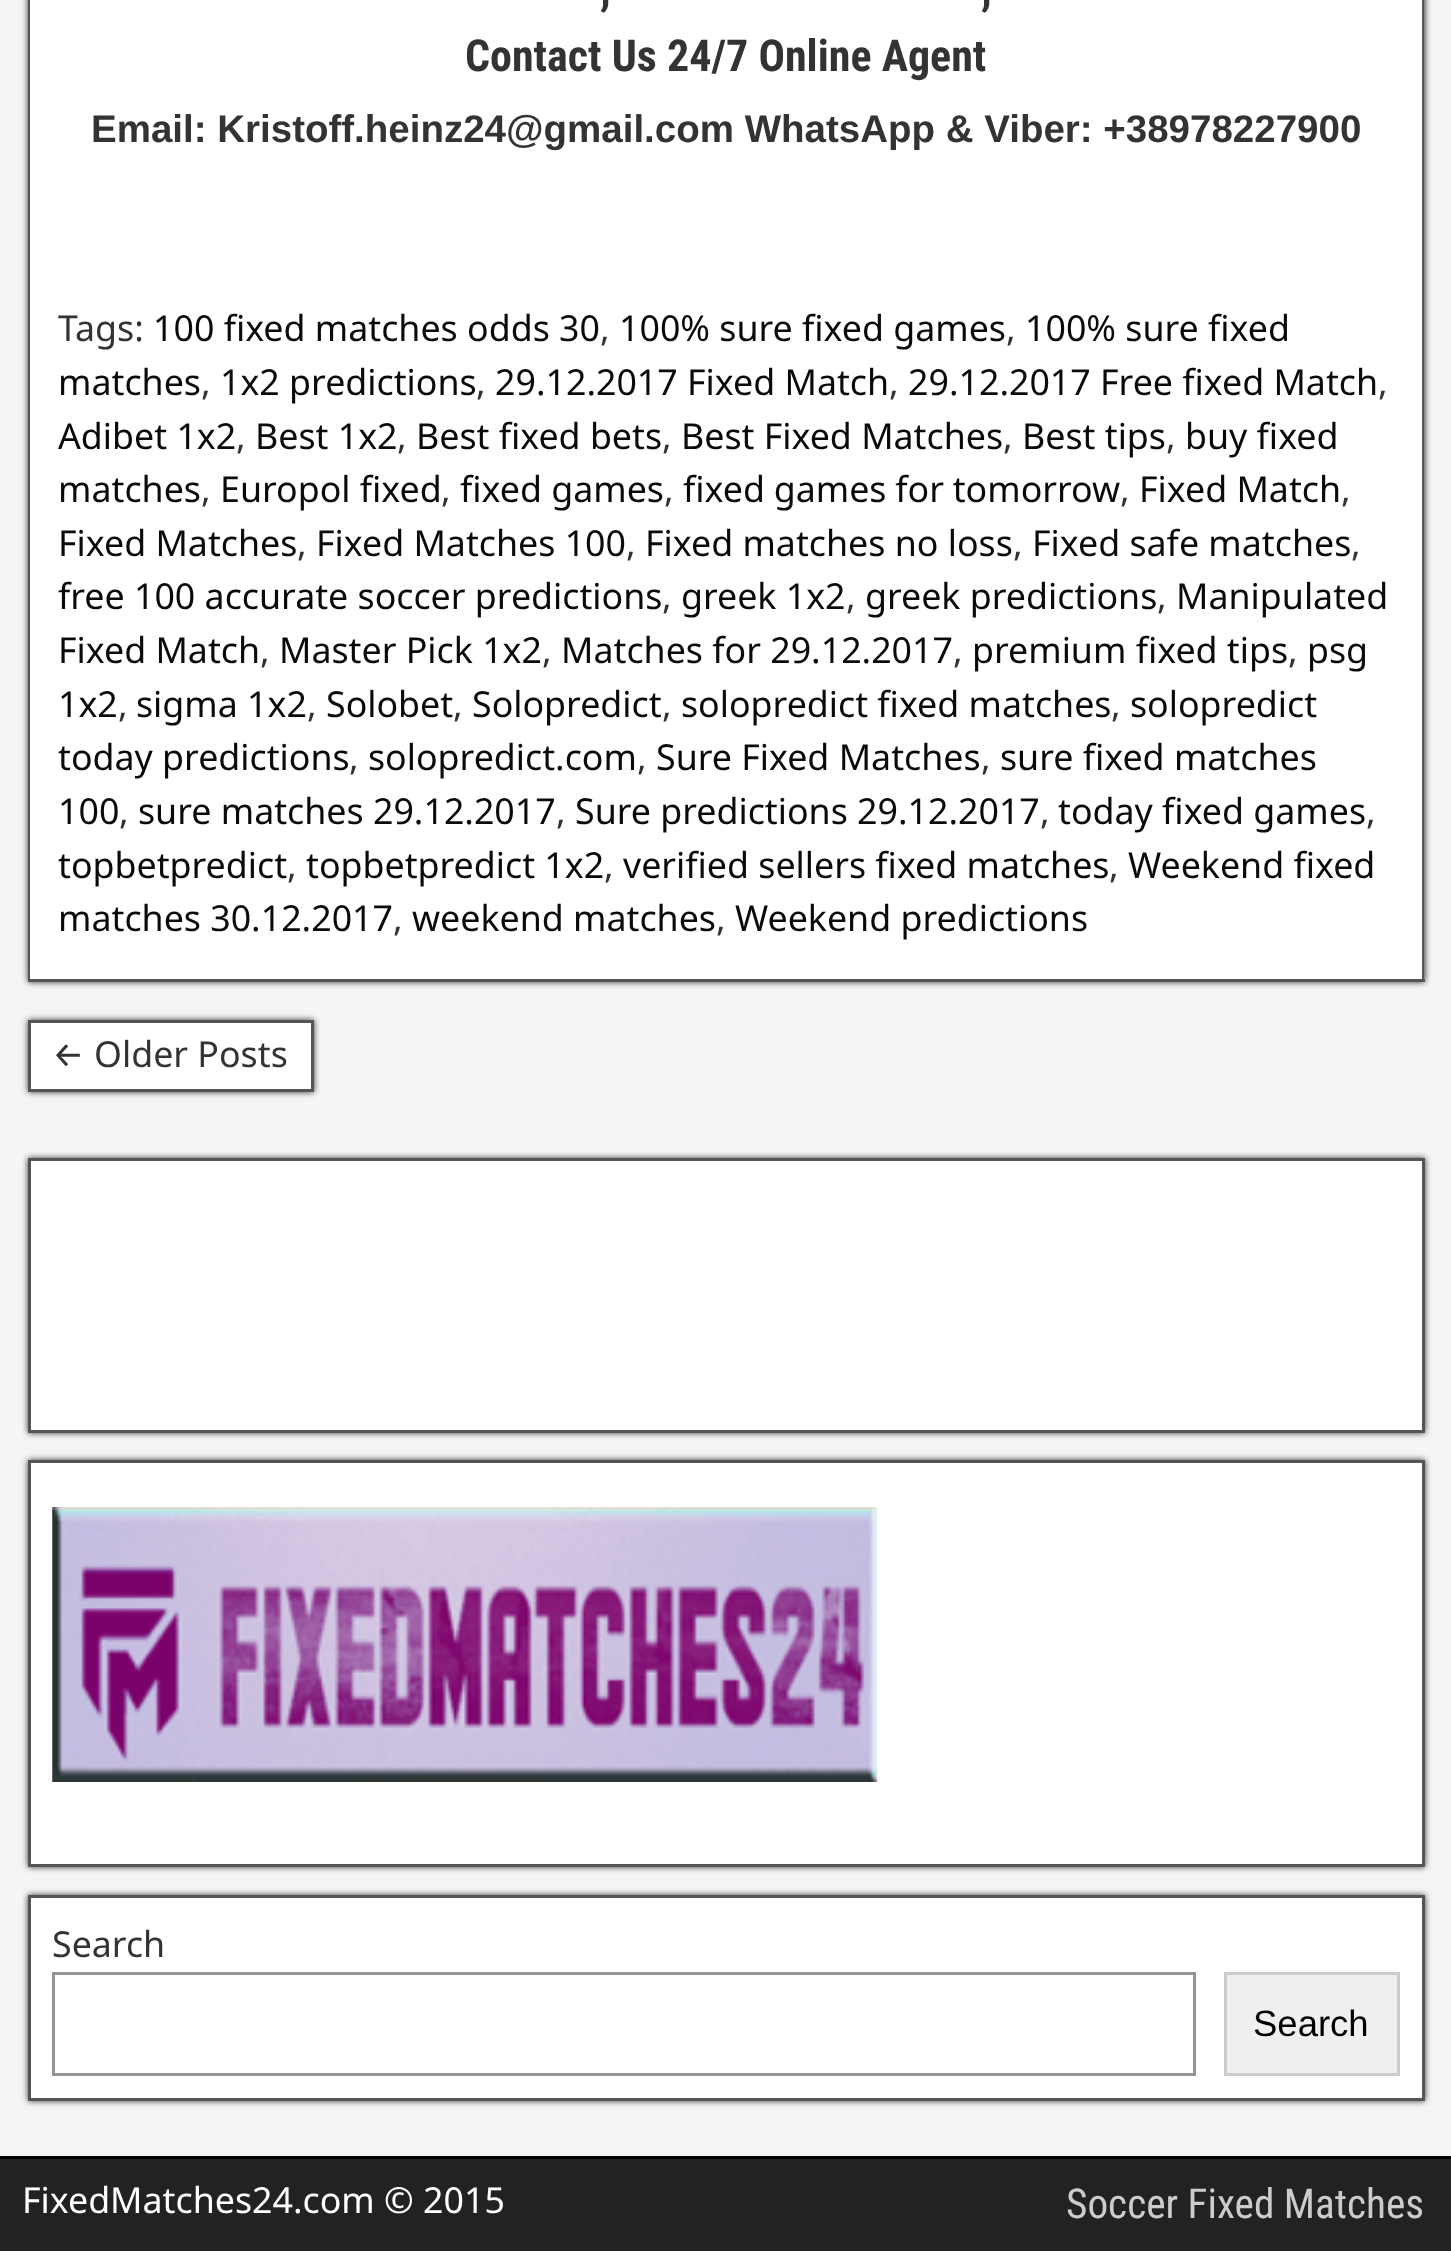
(async () => {
const canvas = document.querySelector("canvas")
canvas.width = 1451
canvas.height = 2251
const c = canvas.getContext("2d")
c.miterLimit = 4
c.fontKerning = "normal"
function T(s,x,y){c.fillText(s,x,y)}
function R(x,y,w,h){c.fillRect(x,y,w,h)}
async function I(src,x,y,w,h){const img=new Image();img.src=src;await img.decode();c.drawImage(img,x,y,w,h)}
let path
c.fillStyle="#f5f5f5"
R(0,0,1451,2251)
c.fillStyle="#333"
c.filter="blur(3px)"
c.beginPath()
c.rect(28,-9,1397,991)
c.fill()
c.filter="none"
c.fillStyle="#fff"
R(30,0,1392,979)
c.fillStyle="#555"
path = new Path2D("M1424-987v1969l-2-3v-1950z")
c.fill(path)
R(28,979,1397,3)
path = new Path2D("M28 982v-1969l2 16v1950z")
c.fill(path)
c.font="bold 44px Roboto Condensed"
c.fillStyle="#333"
T(",",600,5)
T(",",981,5)
T("Contact Us 24/7 Online Agent",465,71)
c.font="bold 38.5px Liberation Sans"
T("Email: Kristoff.heinz24@gmail.com WhatsApp & Viber: +38978227900",91,142)
c.font="35.75px Noto Sans"
T("Tags:",58,341)
c.fillStyle="#0a0a0a"
T("100 fixed matches odds 30",153,341)
c.fillStyle="#333"
T(",",600,341)
c.fillStyle="#0a0a0a"
T("100% sure fixed games",619,341)
c.fillStyle="#333"
T(",",1006,341)
c.fillStyle="#0a0a0a"
T("100% sure fixed",1025,341)
T("matches",58,395)
c.fillStyle="#333"
T(",",201,395)
c.fillStyle="#0a0a0a"
T("1x2 predictions",220,395)
c.fillStyle="#333"
T(",",476,395)
c.fillStyle="#0a0a0a"
T("29.12.2017 Fixed Match",495,395)
c.fillStyle="#333"
T(",",889,395)
c.fillStyle="#0a0a0a"
T("29.12.2017 Free fixed Match",908,395)
c.fillStyle="#333"
T(",",1378,395)
c.fillStyle="#0a0a0a"
T("Adibet 1x2",58,449)
c.fillStyle="#333"
T(",",236,449)
c.fillStyle="#0a0a0a"
T("Best 1x2",255,449)
c.fillStyle="#333"
T(",",397,449)
c.fillStyle="#0a0a0a"
T("Best fixed bets",416,449)
c.fillStyle="#333"
T(",",662,449)
c.fillStyle="#0a0a0a"
T("Best Fixed Matches",681,449)
c.fillStyle="#333"
T(",",1003,449)
c.fillStyle="#0a0a0a"
T("Best tips",1022,449)
c.fillStyle="#333"
T(",",1166,449)
c.fillStyle="#0a0a0a"
T("buy fixed",1185,449)
T("matches",58,502)
c.fillStyle="#333"
T(",",201,502)
c.fillStyle="#0a0a0a"
T("Europol fixed",220,502)
c.fillStyle="#333"
T(",",441,502)
c.fillStyle="#0a0a0a"
T("fixed games",460,502)
c.fillStyle="#333"
T(",",664,502)
c.wordSpacing="-0.5px"
c.fillStyle="#0a0a0a"
T("fixed games for tomorrow",683,502)
c.wordSpacing="0px"
c.fillStyle="#333"
T(",",1120,502)
c.fillStyle="#0a0a0a"
T("Fixed Match",1139,502)
c.fillStyle="#333"
T(",",1341,502)
c.fillStyle="#0a0a0a"
T("Fixed Matches",58,556)
c.fillStyle="#333"
T(",",297,556)
c.fillStyle="#0a0a0a"
T("Fixed Matches 100",316,556)
c.fillStyle="#333"
T(",",626,556)
c.fillStyle="#0a0a0a"
T("Fixed matches no loss",645,556)
c.fillStyle="#333"
T(",",1013,556)
c.fillStyle="#0a0a0a"
T("Fixed safe matches",1032,556)
c.fillStyle="#333"
T(",",1351,556)
c.fillStyle="#0a0a0a"
T("free 100 accurate soccer predictions",58,609)
c.fillStyle="#333"
T(",",662,609)
c.fillStyle="#0a0a0a"
T("greek 1x2",681,609)
c.fillStyle="#333"
T(",",846,609)
c.fillStyle="#0a0a0a"
T("greek predictions",865,609)
c.fillStyle="#333"
T(",",1157,609)
c.fillStyle="#0a0a0a"
T("Manipulated",1176,609)
T("Fixed Match",58,663)
c.fillStyle="#333"
T(",",260,663)
c.fillStyle="#0a0a0a"
T("Master Pick 1x2",279,663)
c.fillStyle="#333"
T(",",542,663)
c.fillStyle="#0a0a0a"
T("Matches for 29.12.2017",561,663)
c.fillStyle="#333"
T(",",953,663)
c.fillStyle="#0a0a0a"
T("premium fixed tips",972,663)
c.fillStyle="#333"
T(",",1288,663)
c.fillStyle="#0a0a0a"
T("psg",1307,663)
T("1x2",58,717)
c.fillStyle="#333"
T(",",118,717)
c.fillStyle="#0a0a0a"
T("sigma 1x2",136,717)
c.fillStyle="#333"
T(",",307,717)
c.fillStyle="#0a0a0a"
T("Solobet",326,717)
c.fillStyle="#333"
T(",",453,717)
c.fillStyle="#0a0a0a"
T("Solopredict",472,717)
c.fillStyle="#333"
T(",",662,717)
c.fillStyle="#0a0a0a"
T("solopredict fixed matches",681,717)
c.fillStyle="#333"
T(",",1111,717)
c.fillStyle="#0a0a0a"
T("solopredict",1130,717)
T("today predictions",58,770)
c.fillStyle="#333"
T(",",349,770)
c.fillStyle="#0a0a0a"
T("solopredict.com",368,770)
c.fillStyle="#333"
T(",",637,770)
c.fillStyle="#0a0a0a"
T("Sure Fixed Matches",656,770)
c.fillStyle="#333"
T(",",981,770)
c.fillStyle="#0a0a0a"
T("sure fixed matches",1000,770)
T("100",58,824)
c.fillStyle="#333"
T(",",119,824)
c.fillStyle="#0a0a0a"
T("sure matches 29.12.2017",138,824)
c.fillStyle="#333"
T(",",556,824)
c.fillStyle="#0a0a0a"
T("Sure predictions 29.12.2017",575,824)
c.fillStyle="#333"
T(",",1040,824)
c.fillStyle="#0a0a0a"
T("today fixed games",1058,824)
c.fillStyle="#333"
T(",",1366,824)
c.fillStyle="#0a0a0a"
T("topbetpredict",58,878)
c.fillStyle="#333"
T(",",287,878)
c.fillStyle="#0a0a0a"
T("topbetpredict 1x2",306,878)
c.fillStyle="#333"
T(",",604,878)
c.fillStyle="#0a0a0a"
T("verified sellers fixed matches",623,878)
c.fillStyle="#333"
T(",",1109,878)
c.fillStyle="#0a0a0a"
T("Weekend fixed",1128,878)
T("matches 30.12.2017",58,931)
c.fillStyle="#333"
T(",",393,931)
c.fillStyle="#0a0a0a"
T("weekend matches",412,931)
c.fillStyle="#333"
T(",",716,931)
c.fillStyle="#0a0a0a"
T("Weekend predictions",735,931)
c.fillStyle="#333"
c.filter="blur(3px)"
c.beginPath()
c.rect(28,1020,286,72)
c.fill()
c.filter="none"
c.fillStyle="#fff"
c.beginPath()
c.rect(29.5,1021.5,283,69)
c.fill()
c.strokeStyle="#555"
c.lineWidth=3
c.stroke()
c.font="35.75px Fira Sans"
c.fillStyle="#333"
T("←",52,1067)
c.font="35.75px Noto Sans"
T("Older Posts",94,1067)
c.filter="blur(3px)"
c.beginPath()
c.rect(28,1158,1397,275)
c.fill()
c.filter="none"
c.fillStyle="#fff"
c.beginPath()
c.rect(29.5,1159.5,1394,272)
c.fill()
c.stroke()
c.fillStyle="#333"
c.filter="blur(3px)"
c.beginPath()
c.rect(28,1460,1397,407)
c.fill()
c.filter="none"
c.fillStyle="#fff"
c.beginPath()
c.rect(29.5,1461.5,1394,404)
c.fill()
c.stroke()
await I("1.png",52,1507,826,275)
c.fillStyle="#333"
c.filter="blur(3px)"
c.beginPath()
c.rect(28,1895,1397,206)
c.fill()
c.filter="none"
c.fillStyle="#fff"
c.beginPath()
c.rect(29.5,1896.5,1394,203)
c.fill()
c.stroke()
c.fillStyle="#333"
T("Search",52,1957)
c.strokeStyle="#949494"
c.strokeRect(53.5,1973.5,1141,101)
c.fillStyle="#efefef"
c.beginPath()
c.rect(1225.5,1973.5,173,101)
c.fill()
c.strokeStyle="#ccc"
c.stroke()
c.font="36.5px Liberation Sans"
c.fillStyle="#000"
T("Search",1253,2036)
c.fillStyle="#222"
R(0,2159,1451,92)
c.fillStyle="#000"
R(0,2156,1451,3)
c.font="35.75px Noto Sans"
c.fillStyle="#fff"
T("FixedMatches24.com © 2015",22,2213)
c.font="41.25px Roboto Condensed"
c.fillStyle="#ccc"
T("Soccer Fixed Matches",1066,2218)
})()
